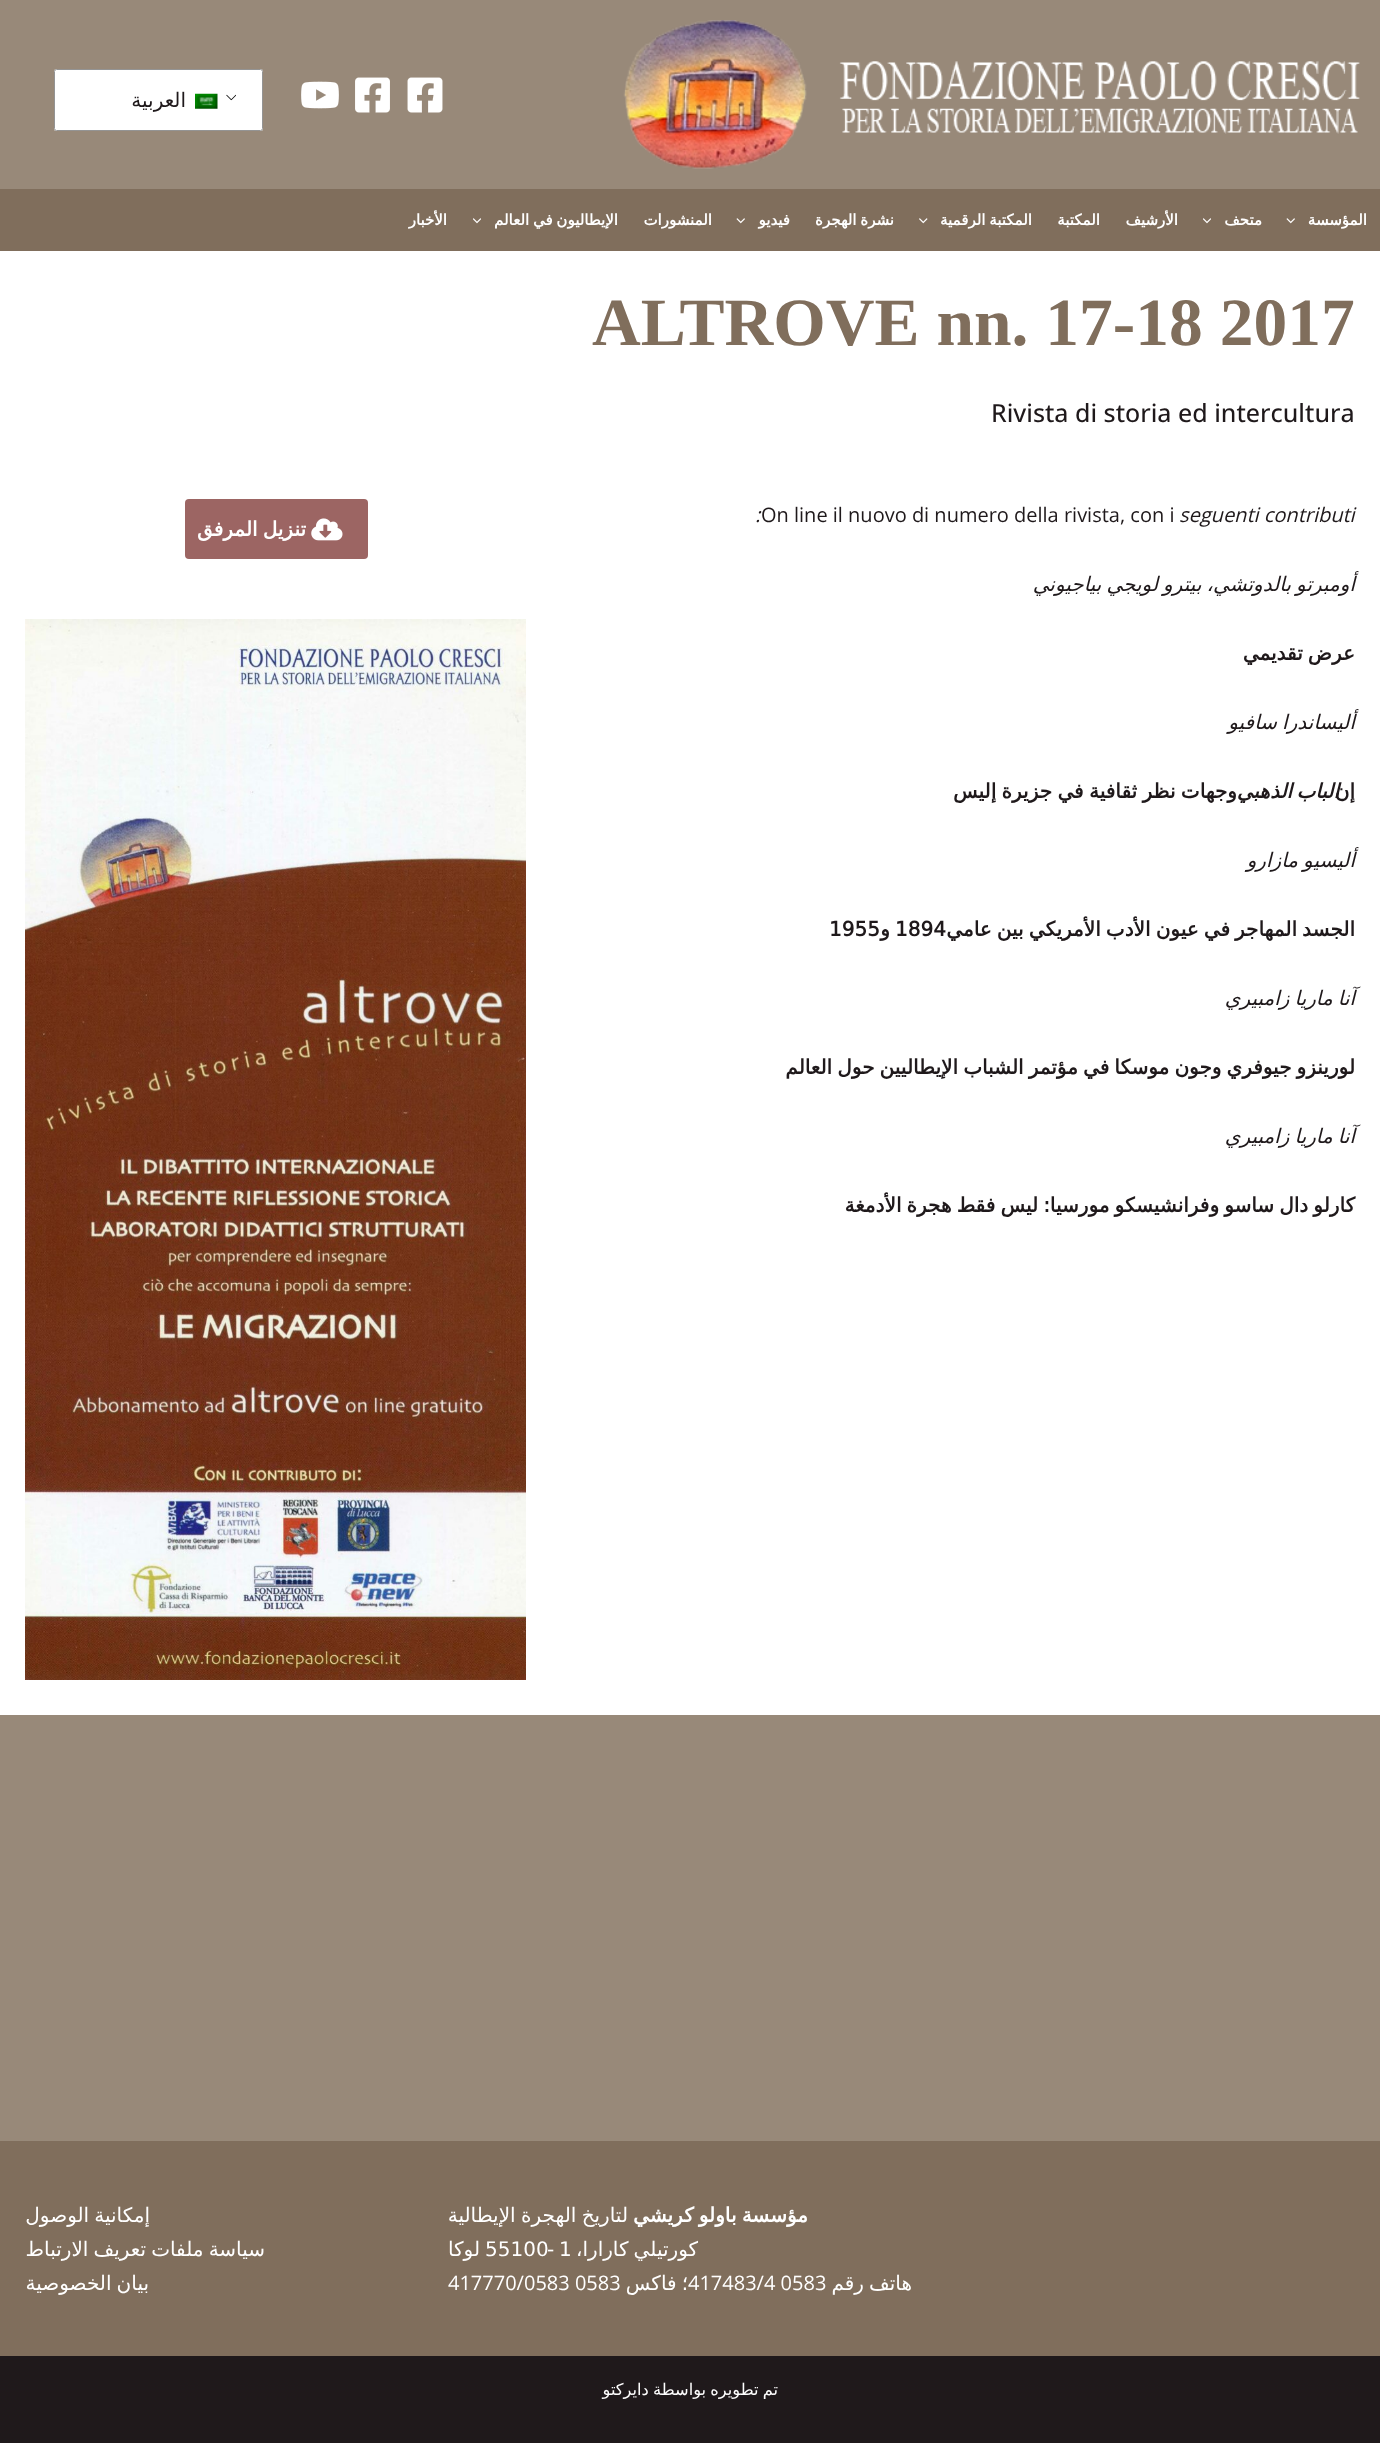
(async () => {
const canvas = document.querySelector("canvas")
canvas.width = 1380
canvas.height = 2443
const c = canvas.getContext("2d")
c.miterLimit = 4
c.fontKerning = "normal"
function T(s,x,y){c.fillText(s,x,y)}
function R(x,y,w,h){c.fillRect(x,y,w,h)}
function Q(x,y,w,h,r){c.beginPath();c.roundRect(x,y,w,h,r);c.fill()}
async function I(src,x,y,w,h){const img=new Image();img.src=src;await img.decode();c.drawImage(img,x,y,w,h)}
c.fillStyle="#988979"
R(0,0,1380,2443)
await I("1.png",623,20,737,149)
await I("2.png",407,77,36,36)
await I("3.png",355,77,35,36)
await I("4.png",301,81,38,28)
c.fillStyle="#fff"
Q(54,69,209,62,2.5)
await I("5.png",226,94,10,7)
c.beginPath()
c.roundRect(54.5,69.5,208,61,2)
c.strokeStyle="#949494"
c.stroke()
await I("6.png",195,93,23,16)
c.direction="rtl"
c.font="20px DejaVu Sans"
c.fillStyle="#1f191b"
T("العربية",186,107)
c.fillStyle="#806e5c"
R(0,189,1380,62)
c.font="bold 15px DejaVu Sans"
c.fillStyle="#fff"
T("المؤسسة",1367,225)
await I("7.png",1286,218,9,6)
T("متحف",1262,225)
await I("8.png",1203,218,8,6)
T("الأرشيف",1178,225)
T("المكتبة",1100,225)
c.wordSpacing="-1px"
T("المكتبة الرقمية",1032,225)
await I("9.png",919,218,9,6)
T("نشرة الهجرة",894,225)
c.wordSpacing="0px"
T("فيديو",790,225)
await I("7.png",736,218,9,6)
T("المنشورات",712,225)
c.wordSpacing="-1px"
T("الإيطاليون في العالم",618,225)
await I("8.png",473,218,8,6)
c.wordSpacing="0px"
T("الأخبار",447,225)
R(0,251,1380,1464)
c.direction="ltr"
c.font="bold 67.5px Liberation Serif"
c.fillStyle="#806e5c"
T("ALTROVE nn. 17-18 2017",592,345)
c.font="500 25px Open Sans"
c.fillStyle="#1f191b"
T("Rivista di storia ed intercultura",991,422)
c.font="italic 20px Open Sans"
T("seguenti contributi",1179,522)
c.font="20px Open Sans"
T("On line il nuovo di numero della rivista, con i",761,522)
c.font="italic 20px Open Sans"
T(":",755,522)
c.wordSpacing="-1.25px"
c.direction="rtl"
c.font="italic 20px DejaVu Sans"
T("أومبرتو بالدوتشي، بيترو لويجي بياجيوني",1355,591)
c.font="bold 20px DejaVu Sans"
T("عرض تقديمي",1355,660)
c.font="italic 20px DejaVu Sans"
T("أليساندرا سافيو",1355,729)
c.wordSpacing="0px"
c.font="bold 20px DejaVu Sans"
T("إن",1355,798)
c.wordSpacing="-2px"
c.font="italic bold 20px DejaVu Sans"
T("الباب الذهبي",1339,798)
c.wordSpacing="-1px"
c.font="bold 20px DejaVu Sans"
T("وجهات نظر ثقافية في جزيرة إليس",1237,798)
c.wordSpacing="-1.25px"
c.font="italic 20px DejaVu Sans"
T("أليسيو مازارو",1355,867)
c.font="bold 20px DejaVu Sans"
T("الجسد المهاجر في عيون الأدب الأمريكي بين عامي",1355,936)
c.wordSpacing="0px"
c.direction="ltr"
T("1894",895,936)
c.direction="rtl"
T("و",890,936)
c.direction="ltr"
T("1955",829,936)
c.wordSpacing="-1.25px"
c.direction="rtl"
c.font="italic 20px DejaVu Sans"
T("آنا ماريا زامبيري",1355,1005)
c.font="bold 20px DejaVu Sans"
T("لورينزو جيوفري وجون موسكا في مؤتمر الشباب الإيطاليين حول العالم",1355,1074)
c.font="italic 20px DejaVu Sans"
T("آنا ماريا زامبيري",1355,1143)
c.font="bold 20px DejaVu Sans"
T("كارلو دال ساسو وفرانشيسكو مورسيا: ليس فقط هجرة الأدمغة",1355,1212)
c.fillStyle="#9c6563"
Q(185,499,183,60,4)
await I("10.png",311,518,32,23)
c.fillStyle="#fff"
T("تنزيل المرفق",306,536)
await I("11.png",25,619,501,1061)
c.fillStyle="#806e5c"
R(0,2141,1380,215)
c.fillStyle="#fff"
T("مؤسسة باولو كريشي",808,2222)
c.wordSpacing="-1px"
c.font="20px DejaVu Sans"
T("لتاريخ الهجرة الإيطالية",628,2222)
c.wordSpacing="-1.25px"
T("كورتيلي كارارا،",698,2256)
c.wordSpacing="0px"
c.direction="ltr"
T("1",559,2256)
T("55100",485,2256)
T("-",547,2256)
c.direction="rtl"
T("لوكا",480,2256)
c.wordSpacing="-1.25px"
T("هاتف رقم",912,2290)
T("؛ فاكس",688,2290)
c.wordSpacing="0px"
c.direction="ltr"
c.font="20px Open Sans"
T("417483/4 0583",688,2290)
T("417770/0583 0583",448,2290)
c.wordSpacing="-1.25px"
c.direction="rtl"
c.font="20px DejaVu Sans"
T("إمكانية الوصول",150,2222)
T("سياسة ملفات تعريف الارتباط",265,2256)
T("بيان الخصوصية",149,2290)
c.fillStyle="#1f191b"
R(0,2356,1380,87)
c.wordSpacing="-1px"
c.font="16.25px DejaVu Sans"
c.fillStyle="#fff"
T("تم تطويره بواسطة دايركتو",778,2395)
})()
